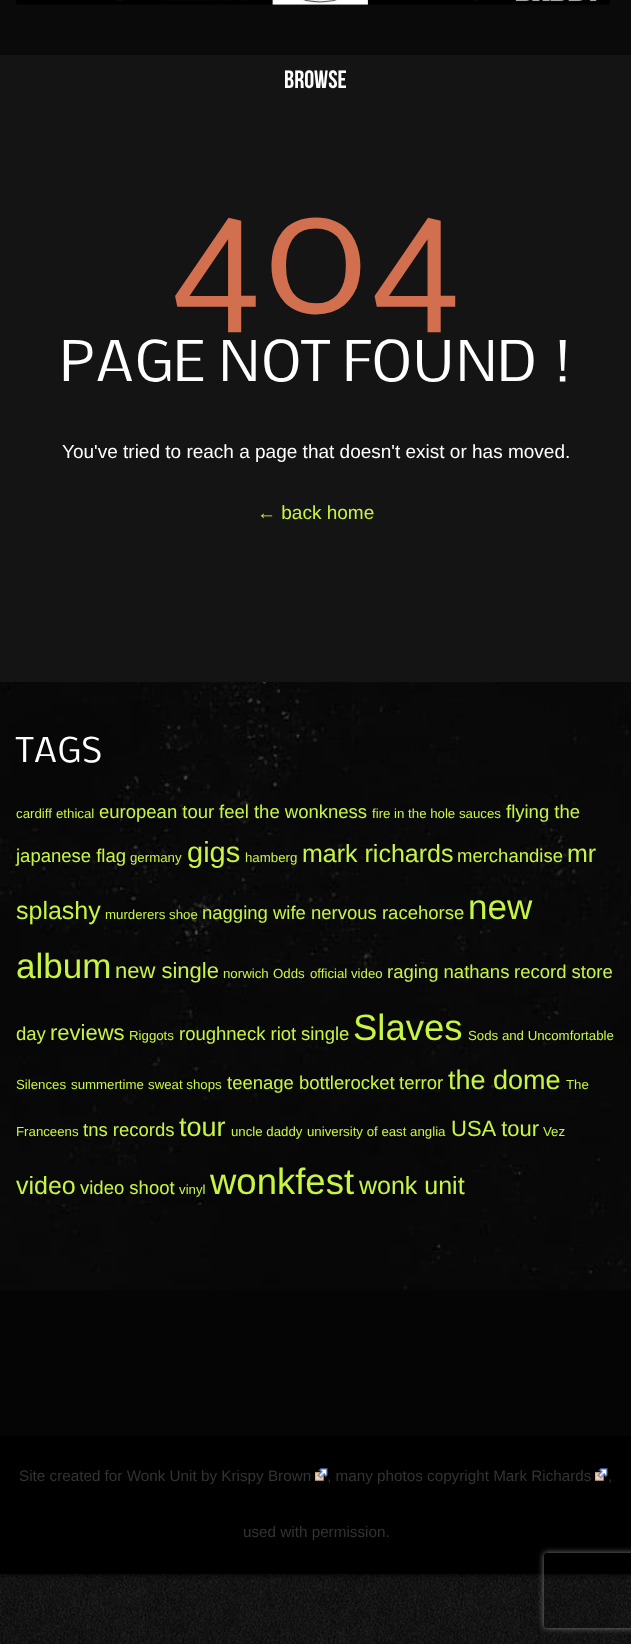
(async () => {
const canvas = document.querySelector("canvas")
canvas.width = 631
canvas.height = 1644
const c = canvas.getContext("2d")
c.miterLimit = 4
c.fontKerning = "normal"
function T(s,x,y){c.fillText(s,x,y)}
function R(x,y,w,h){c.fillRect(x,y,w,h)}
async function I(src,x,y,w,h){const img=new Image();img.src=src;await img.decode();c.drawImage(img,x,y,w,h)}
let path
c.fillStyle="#fff"
R(0,0,631,1644)
await I("1.png",0,1574,631,70)
c.fillStyle="#000"
c.filter="blur(3px)"
c.beginPath()
c.rect(0,-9,631,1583)
c.fill()
c.filter="none"
c.fillStyle="#141414"
R(0,55,631,627)
c.fillStyle="#0a0a0a"
R(0,0,631,55)
await I("2.png",16,0,594,5)
c.font="25px Bebas Neue"
c.fillStyle="#fff"
T("Browse",284,88)
c.font="160px Nobile"
c.fillStyle="#d16f4e"
T("404",169,312)
c.font="53.25px Nobile"
c.fillStyle="#fff"
T("PAGE NOT FOUND !",59,381)
c.font="19px Liberation Sans"
T("You've tried to reach a page that doesn't exist or has moved.",62,458)
c.fillStyle="#c8f542"
T("← back home",257,519)
await I("3.png",0,682,631,608)
c.font="32.5px Nobile"
c.fillStyle="#fff"
T("TAGS",16,762)
c.font="13.25px Liberation Sans"
c.fillStyle="#c8f542"
T("cardiff",16,818)
T("ethical",56,818)
c.font="18.5px Liberation Sans"
T("european tour",99,818)
T("feel the wonkness",219,818)
c.font="13.25px Liberation Sans"
T("fire in the hole sauces",372,818)
c.font="18.5px Liberation Sans"
T("flying the",506,818)
T("japanese flag",16,862)
c.font="13.25px Liberation Sans"
T("germany",130,862)
c.font="29px Liberation Sans"
T("gigs",187,862)
c.font="13.25px Liberation Sans"
T("hamberg",245,862)
c.font="25px Liberation Sans"
T("mark richards",302,862)
c.font="18.5px Liberation Sans"
T("merchandise",457,862)
c.font="25px Liberation Sans"
T("mr",567,862)
T("splashy",16,919)
c.font="13.25px Liberation Sans"
T("murderers shoe",105,919)
c.font="18.5px Liberation Sans"
T("nagging wife",202,919)
T("nervous racehorse",311,919)
c.font="35px Liberation Sans"
T("new",468,919)
T("album",16,978)
c.font="22px Liberation Sans"
T("new single",115,978)
c.font="13.25px Liberation Sans"
T("norwich",223,978)
T("Odds",273,978)
T("official video",310,978)
c.font="18.5px Liberation Sans"
T("raging nathans",387,978)
T("record store",514,978)
T("day",16,1040)
c.font="22px Liberation Sans"
T("reviews",50,1040)
c.font="13.25px Liberation Sans"
T("Riggots",129,1040)
c.font="18.5px Liberation Sans"
T("roughneck riot",179,1040)
T("single",301,1040)
c.font="36.5px Liberation Sans"
T("Slaves",353,1040)
c.font="13.25px Liberation Sans"
T("Sods and Uncomfortable",468,1040)
T("Silences",16,1089)
T("summertime",71,1089)
T("sweat shops",148,1089)
c.font="18.5px Liberation Sans"
T("teenage bottlerocket",227,1089)
T("terror",399,1089)
c.font="27px Liberation Sans"
T("the dome",448,1089)
c.font="13.25px Liberation Sans"
T("The",566,1089)
T("Franceens",16,1136)
c.font="18.5px Liberation Sans"
T("tns records",83,1136)
c.font="27px Liberation Sans"
T("tour",179,1136)
c.font="13.25px Liberation Sans"
T("uncle daddy",231,1136)
T("university of east anglia",307,1136)
c.font="22px Liberation Sans"
T("USA tour",451,1136)
c.font="13.25px Liberation Sans"
T("Vez",543,1136)
c.font="25px Liberation Sans"
T("video",16,1194)
c.font="18.5px Liberation Sans"
T("video shoot",80,1194)
c.font="13.25px Liberation Sans"
T("vinyl",179,1194)
c.font="36.5px Liberation Sans"
T("wonkfest",210,1194)
c.font="25px Liberation Sans"
T("wonk unit",359,1194)
c.fillStyle="#050505"
R(0,1290,631,146)
c.fillStyle="#000"
R(0,1436,631,138)
c.font="15.25px Liberation Sans"
c.fillStyle="#333"
T("Site created for Wonk Unit by Krispy Brown",19,1481)
await I("4.png",315,1468,13,13)
T(", many photos copyright Mark Richards",327,1481)
await I("4.png",595,1468,13,13)
T(",",608,1481)
T("used with permission.",243,1537)
c.save()
path = new Path2D("M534 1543h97v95h-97zm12.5 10h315c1.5 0 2.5 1 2.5 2.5v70c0 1.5-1 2.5-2.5 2.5h-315c-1.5 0-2.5-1-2.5-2.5v-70c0-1.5 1-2.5 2.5-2.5z")
c.clip(path,"evenodd")
c.fillStyle="#808080"
c.filter="blur(3px)"
c.beginPath()
c.roundRect(544,1553,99,75,2.5)
c.fill()
c.filter="none"
c.restore()
})()
